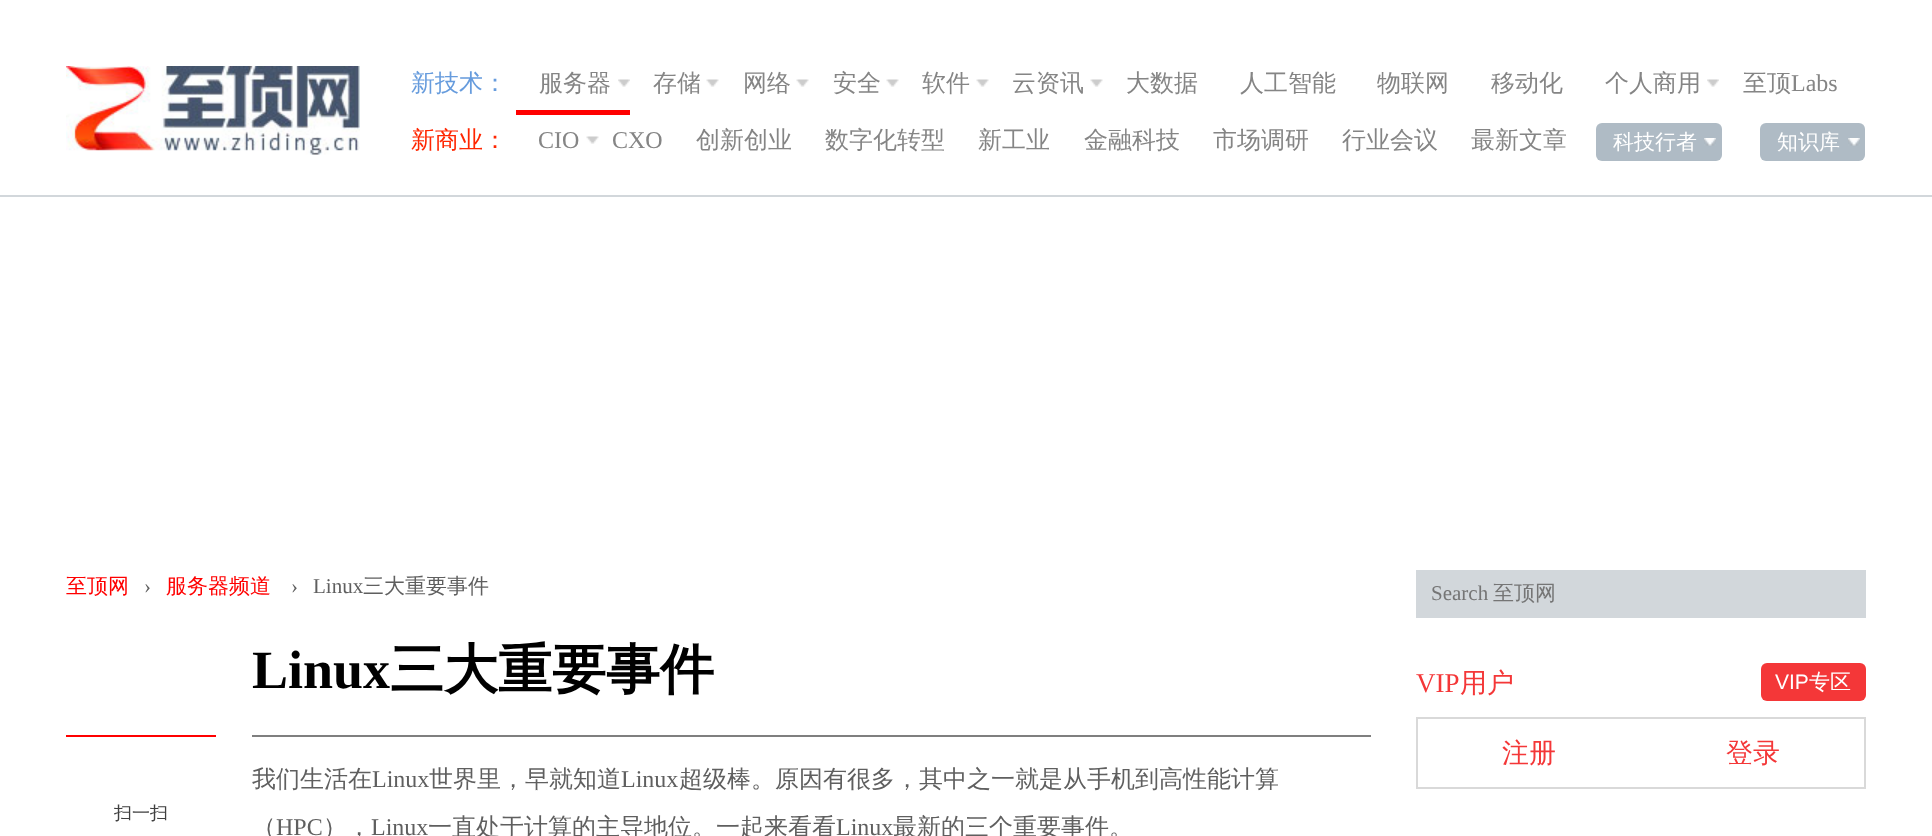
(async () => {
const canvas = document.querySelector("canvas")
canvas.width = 1932
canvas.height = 836
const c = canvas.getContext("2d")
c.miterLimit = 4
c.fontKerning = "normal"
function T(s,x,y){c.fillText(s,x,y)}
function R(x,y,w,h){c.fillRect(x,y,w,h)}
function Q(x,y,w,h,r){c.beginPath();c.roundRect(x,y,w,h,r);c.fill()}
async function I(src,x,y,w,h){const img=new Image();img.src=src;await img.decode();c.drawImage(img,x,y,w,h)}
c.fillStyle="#fff"
R(0,0,1932,836)
c.fillStyle="#d2d7db"
R(0,195,1932,2)
await I("1.png",66,66,294,89)
c.font="500 24px WenQuanYi Zen Hei"
c.fillStyle="#679cdd"
T("新技术：",411,91)
await I("2.png",618,79,12,8)
c.fillStyle="#f00"
R(516,110,114,5)
c.fillStyle="#858585"
T("服务器",539,91)
await I("3.png",706,79,13,8)
T("存储",653,91)
await I("4.png",796,79,13,8)
T("网络",743,91)
await I("4.png",886,79,13,8)
T("安全",833,91)
await I("4.png",976,79,13,8)
T("软件",922,91)
await I("4.png",1090,79,13,8)
T("云资讯",1012,91)
T("大数据",1126,91)
T("人工智能",1240,91)
T("物联网",1377,91)
T("移动化",1491,91)
await I("2.png",1707,79,12,8)
T("个人商用",1605,91)
T("至顶",1743,91)
c.font="24px Liberation Serif"
T("Labs",1791,91)
c.font="500 24px WenQuanYi Zen Hei"
c.fillStyle="#ff2601"
T("新商业：",411,148)
await I("3.png",586,136,13,8)
c.font="24px Liberation Serif"
c.fillStyle="#858585"
T("CIO",538,148)
T("CXO",612,148)
c.font="500 24px WenQuanYi Zen Hei"
T("创新创业",696,148)
T("数字化转型",825,148)
T("新工业",978,148)
T("金融科技",1084,148)
T("市场调研",1213,148)
T("行业会议",1342,148)
T("最新文章",1471,148)
c.fillStyle="#afbbc5"
Q(1596,123,126,38,6)
await I("5.png",1704,138,12,8)
c.font="500 21px WenQuanYi Zen Hei"
c.fillStyle="#fff"
T("科技行者",1613,149)
c.fillStyle="#afbbc5"
Q(1760,123,105,38,6)
await I("6.png",1848,138,12,8)
c.fillStyle="#fff"
T("知识库",1777,149)
c.fillStyle="#f00"
T("至顶网",66,593)
c.font="21px Liberation Serif"
c.fillStyle="#5f5f5f"
T("›",144,593)
c.font="500 21px WenQuanYi Zen Hei"
c.fillStyle="#f00"
T("服务器频道",166,593)
c.font="21px Liberation Serif"
c.fillStyle="#5f5f5f"
T("›",291,593)
T("Linux",313,593)
c.font="500 21px WenQuanYi Zen Hei"
T("三大重要事件",363,593)
c.font="bold 54px Liberation Serif"
c.fillStyle="#000"
T("Linux",252,688)
c.font="bold 54px WenQuanYi Zen Hei"
T("三大重要事件",390,688)
c.fillStyle="#f00"
R(66,735,150,2)
c.font="500 18px WenQuanYi Zen Hei"
c.fillStyle="#404040"
T("扫一扫",114,819)
c.fillStyle="#7f7f7f"
R(252,735,1119,2)
c.font="500 24px WenQuanYi Zen Hei"
c.fillStyle="#5f5f5f"
T("我们生活在",252,787)
c.font="24px Liberation Serif"
T("Linux",372,787)
c.font="500 24px WenQuanYi Zen Hei"
T("世界里，早就知道",429,787)
c.font="24px Liberation Serif"
T("Linux",621,787)
c.font="500 24px WenQuanYi Zen Hei"
T("超级棒。原因有很多，其中之一就是从手机到高性能计算",679,787)
T("（",252,835)
c.font="24px Liberation Serif"
T("HPC",276,835)
c.font="500 24px WenQuanYi Zen Hei"
T("），",323,835)
c.font="24px Liberation Serif"
T("Linux",371,835)
c.font="500 24px WenQuanYi Zen Hei"
T("一直处于计算的主导地位。一起来看看",428,835)
c.font="24px Liberation Serif"
T("Linux",836,835)
c.font="500 24px WenQuanYi Zen Hei"
T("最新的三个重要事件。",893,835)
c.fillStyle="#d2d7db"
R(1416,570,450,48)
c.font="21px Liberation Serif"
c.fillStyle="#757575"
T("Search",1431,600)
c.font="500 21px WenQuanYi Zen Hei"
T("至顶网",1493,600)
c.font="27px Liberation Serif"
c.fillStyle="#f43738"
T("VIP",1416,692)
c.font="500 27px WenQuanYi Zen Hei"
T("用户",1460,692)
c.strokeStyle="#d9d9d9"
c.lineWidth=2
c.strokeRect(1417,718,448,70)
T("注册",1502,762)
T("登录",1726,762)
Q(1761,663,105,38,6)
c.font="21px Liberation Sans"
c.fillStyle="#fff"
T("VIP",1775,689)
c.font="500 21px WenQuanYi Zen Hei"
T("专区",1809,689)
})()
